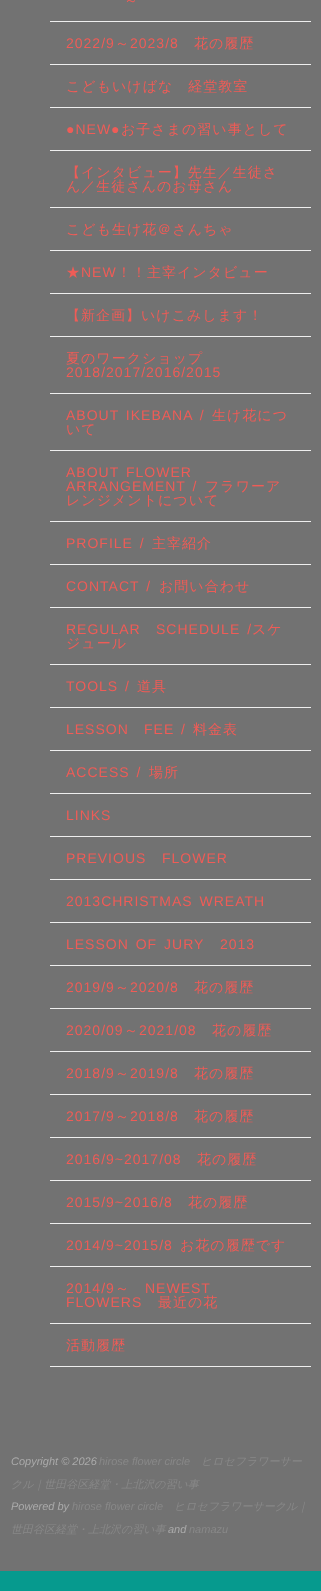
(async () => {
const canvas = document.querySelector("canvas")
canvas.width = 321
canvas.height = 1591
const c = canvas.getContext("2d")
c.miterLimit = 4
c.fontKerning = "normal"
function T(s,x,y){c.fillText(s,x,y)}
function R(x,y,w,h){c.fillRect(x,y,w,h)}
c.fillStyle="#727272"
R(0,0,321,1591)
c.fillStyle="#069a8e"
R(0,1571,321,20)
c.fillStyle="#eee"
R(50,21,261,1)
c.letterSpacing="1px"
c.font="500 14px WenQuanYi Zen Hei"
c.fillStyle="#ef5c57"
T("～",124,5)
c.fillStyle="#eee"
R(50,64,261,1)
c.font="14px Liberation Sans"
c.fillStyle="#ef5c57"
T("2022/9",66,48)
c.font="500 14px WenQuanYi Zen Hei"
T("～",115,48)
c.font="14px Liberation Sans"
T("2023/8",130,48)
c.font="500 14px WenQuanYi Zen Hei"
T("花の履歴",194,48)
c.fillStyle="#eee"
R(50,107,261,1)
c.fillStyle="#ef5c57"
T("こどもいけばな　経堂教室",66,91)
c.fillStyle="#eee"
R(50,150,261,1)
c.font="14px Liberation Sans"
c.fillStyle="#ef5c57"
T("●NEW●",66,134)
c.font="500 14px WenQuanYi Zen Hei"
T("お子さまの習い事として",121,134)
c.fillStyle="#eee"
R(50,207,261,1)
c.fillStyle="#ef5c57"
T("【インタビュー】先生／生徒さ",66,177)
T("ん／生徒さんのお母さん",66,191)
c.fillStyle="#eee"
R(50,250,261,1)
c.fillStyle="#ef5c57"
T("こども生け花＠さんちゃ",66,234)
c.fillStyle="#eee"
R(50,293,261,1)
c.fillStyle="#ef5c57"
T("★",66,277)
c.font="14px Liberation Sans"
T("NEW",81,277)
c.font="500 14px WenQuanYi Zen Hei"
T("！！主宰インタビュー",117,277)
c.fillStyle="#eee"
R(50,336,261,1)
c.fillStyle="#ef5c57"
T("【新企画】いけこみします！",66,320)
c.fillStyle="#eee"
R(50,393,261,1)
c.fillStyle="#ef5c57"
T("夏のワークショップ",66,363)
c.font="14px Liberation Sans"
T("2018/2017/2016/2015",66,377)
c.fillStyle="#eee"
R(50,450,261,1)
c.wordSpacing="2px"
c.fillStyle="#ef5c57"
T("ABOUT IKEBANA /",66,420)
c.wordSpacing="0px"
c.font="500 14px WenQuanYi Zen Hei"
T("生け花につ",212,420)
T("いて",66,434)
c.fillStyle="#eee"
R(50,521,261,1)
c.font="14px Liberation Sans"
c.fillStyle="#ef5c57"
T("ABOUT",66,477)
T("FLOWER",126,477)
c.wordSpacing="2px"
T("ARRANGEMENT /",66,491)
c.wordSpacing="0px"
c.font="500 14px WenQuanYi Zen Hei"
T("フラワーア",205,491)
T("レンジメントについて",66,505)
c.fillStyle="#eee"
R(50,564,261,1)
c.wordSpacing="2px"
c.font="14px Liberation Sans"
c.fillStyle="#ef5c57"
T("PROFILE /",66,548)
c.wordSpacing="0px"
c.font="500 14px WenQuanYi Zen Hei"
T("主宰紹介",152,548)
c.fillStyle="#eee"
R(50,607,261,1)
c.wordSpacing="2px"
c.font="14px Liberation Sans"
c.fillStyle="#ef5c57"
T("CONTACT /",66,591)
c.wordSpacing="0px"
c.font="500 14px WenQuanYi Zen Hei"
T("お問い合わせ",159,591)
c.fillStyle="#eee"
R(50,664,261,1)
c.font="14px Liberation Sans"
c.fillStyle="#ef5c57"
T("REGULAR",66,634)
c.wordSpacing="2px"
T("SCHEDULE /",156,634)
c.wordSpacing="0px"
c.font="500 14px WenQuanYi Zen Hei"
T("スケ",252,634)
T("ジュール",66,648)
c.fillStyle="#eee"
R(50,707,261,1)
c.wordSpacing="2px"
c.font="14px Liberation Sans"
c.fillStyle="#ef5c57"
T("TOOLS /",66,691)
c.wordSpacing="0px"
c.font="500 14px WenQuanYi Zen Hei"
T("道具",137,691)
c.fillStyle="#eee"
R(50,750,261,1)
c.font="14px Liberation Sans"
c.fillStyle="#ef5c57"
T("LESSON",66,734)
c.wordSpacing="2px"
T("FEE /",144,734)
c.wordSpacing="0px"
c.font="500 14px WenQuanYi Zen Hei"
T("料金表",193,734)
c.fillStyle="#eee"
R(50,793,261,1)
c.wordSpacing="2px"
c.font="14px Liberation Sans"
c.fillStyle="#ef5c57"
T("ACCESS /",66,777)
c.wordSpacing="0px"
c.font="500 14px WenQuanYi Zen Hei"
T("場所",149,777)
c.fillStyle="#eee"
R(50,836,261,1)
c.font="14px Liberation Sans"
c.fillStyle="#ef5c57"
T("LINKS",66,820)
c.fillStyle="#eee"
R(50,879,261,1)
c.fillStyle="#ef5c57"
T("PREVIOUS",66,863)
T("FLOWER",162,863)
c.fillStyle="#eee"
R(50,922,261,1)
c.wordSpacing="2px"
c.fillStyle="#ef5c57"
T("2013CHRISTMAS WREATH",66,906)
c.fillStyle="#eee"
R(50,965,261,1)
c.fillStyle="#ef5c57"
T("LESSON OF JURY",66,949)
c.wordSpacing="0px"
T("2013",220,949)
c.fillStyle="#eee"
R(50,1008,261,1)
c.fillStyle="#ef5c57"
T("2019/9",66,992)
c.font="500 14px WenQuanYi Zen Hei"
T("～",115,992)
c.font="14px Liberation Sans"
T("2020/8",130,992)
c.font="500 14px WenQuanYi Zen Hei"
T("花の履歴",194,992)
c.fillStyle="#eee"
R(50,1051,261,1)
c.font="14px Liberation Sans"
c.fillStyle="#ef5c57"
T("2020/09",66,1035)
c.font="500 14px WenQuanYi Zen Hei"
T("～",124,1035)
c.font="14px Liberation Sans"
T("2021/08",139,1035)
c.font="500 14px WenQuanYi Zen Hei"
T("花の履歴",212,1035)
c.fillStyle="#eee"
R(50,1094,261,1)
c.font="14px Liberation Sans"
c.fillStyle="#ef5c57"
T("2018/9",66,1078)
c.font="500 14px WenQuanYi Zen Hei"
T("～",115,1078)
c.font="14px Liberation Sans"
T("2019/8",130,1078)
c.font="500 14px WenQuanYi Zen Hei"
T("花の履歴",194,1078)
c.fillStyle="#eee"
R(50,1137,261,1)
c.font="14px Liberation Sans"
c.fillStyle="#ef5c57"
T("2017/9",66,1121)
c.font="500 14px WenQuanYi Zen Hei"
T("～",115,1121)
c.font="14px Liberation Sans"
T("2018/8",130,1121)
c.font="500 14px WenQuanYi Zen Hei"
T("花の履歴",194,1121)
c.fillStyle="#eee"
R(50,1180,261,1)
c.font="14px Liberation Sans"
c.fillStyle="#ef5c57"
T("2016/9~2017/08",66,1164)
c.font="500 14px WenQuanYi Zen Hei"
T("花の履歴",197,1164)
c.fillStyle="#eee"
R(50,1223,261,1)
c.font="14px Liberation Sans"
c.fillStyle="#ef5c57"
T("2015/9~2016/8",66,1207)
c.font="500 14px WenQuanYi Zen Hei"
T("花の履歴",188,1207)
c.fillStyle="#eee"
R(50,1266,261,1)
c.font="14px Liberation Sans"
c.fillStyle="#ef5c57"
T("2014/9~2015/8",66,1250)
c.font="500 14px WenQuanYi Zen Hei"
T("お花の履歴です",180,1250)
c.fillStyle="#eee"
R(50,1323,261,1)
c.font="14px Liberation Sans"
c.fillStyle="#ef5c57"
T("2014/9",66,1293)
c.font="500 14px WenQuanYi Zen Hei"
T("～",115,1293)
c.font="14px Liberation Sans"
T("NEWEST",145,1293)
T("FLOWERS",66,1307)
c.font="500 14px WenQuanYi Zen Hei"
T("最近の花",158,1307)
c.fillStyle="#eee"
R(50,1366,261,1)
c.fillStyle="#ef5c57"
T("活動履歴",66,1350)
c.letterSpacing="0px"
c.font="italic 11px Liberation Sans"
c.fillStyle="#aaa"
T("Copyright © 2026",11,1465)
c.fillStyle="#888"
T("hirose flower circle",99,1465)
c.font="italic 500 11px WenQuanYi Zen Hei"
T("ヒロセフラワーサー",201,1465)
T("クル｜世田谷区経堂・上北沢の習い事",11,1488)
c.font="italic 11px Liberation Sans"
c.fillStyle="#aaa"
T("Powered by",11,1510)
c.fillStyle="#888"
T("hirose flower circle",72,1510)
c.font="italic 500 11px WenQuanYi Zen Hei"
T("ヒロセフラワーサークル｜",174,1510)
T("世田谷区経堂・上北沢の習い事",11,1533)
c.font="italic 11px Liberation Sans"
c.fillStyle="#aaa"
T("and",168,1533)
c.fillStyle="#888"
T("namazu",189,1533)
})()
